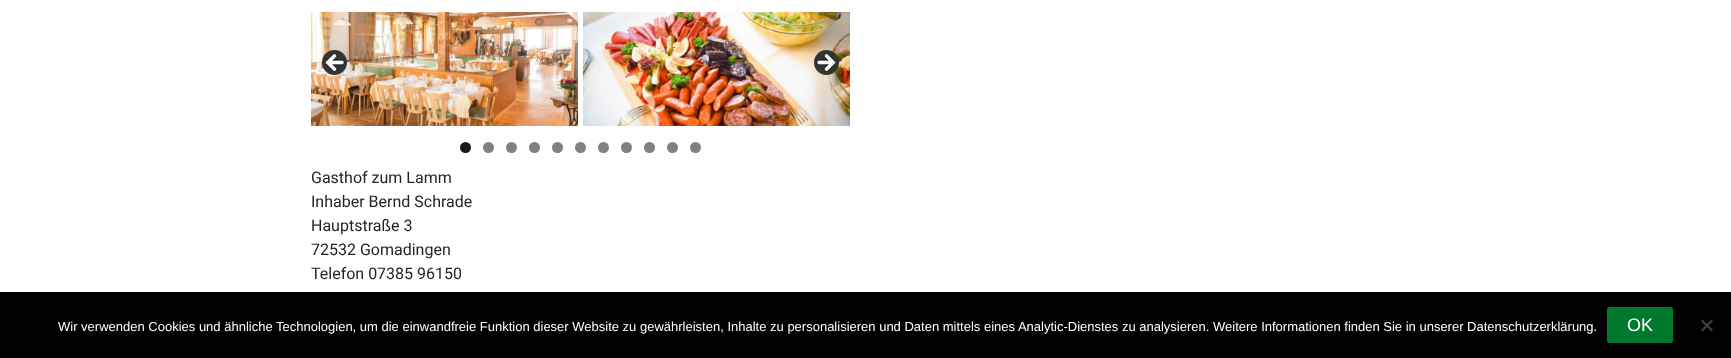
(async () => {
const canvas = document.querySelector("canvas")
canvas.width = 1731
canvas.height = 358
const c = canvas.getContext("2d")
c.miterLimit = 4
c.fontKerning = "normal"
function T(s,x,y){c.fillText(s,x,y)}
function R(x,y,w,h){c.fillRect(x,y,w,h)}
function Q(x,y,w,h,r){c.beginPath();c.roundRect(x,y,w,h,r);c.fill()}
async function I(src,x,y,w,h){const img=new Image();img.src=src;await img.decode();c.drawImage(img,x,y,w,h)}
let path
c.fillStyle="#fff"
R(0,0,1731,358)
await I("1.png",311,12,267,114)
await I("2.png",583,12,267,114)
await I("3.png",322,50,25,25)
await I("4.png",814,50,25,25)
c.fillStyle="#1a1a1a"
c.beginPath()
c.arc(465.5,147.5,5.5,0,7)
c.fill()
c.fillStyle="#808080"
c.beginPath()
c.arc(488.5,147.5,5.5,0,7)
c.fill()
c.beginPath()
c.arc(511.5,147.5,5.5,0,7)
c.fill()
c.beginPath()
c.arc(534.5,147.5,5.5,0,7)
c.fill()
c.beginPath()
c.arc(557.5,147.5,5.5,0,7)
c.fill()
c.beginPath()
c.arc(580.5,147.5,5.5,0,7)
c.fill()
c.beginPath()
c.arc(603.5,147.5,5.5,0,7)
c.fill()
c.beginPath()
c.arc(626.5,147.5,5.5,0,7)
c.fill()
c.beginPath()
c.arc(649.5,147.5,5.5,0,7)
c.fill()
c.beginPath()
c.arc(672.5,147.5,5.5,0,7)
c.fill()
c.beginPath()
c.arc(695.5,147.5,5.5,0,7)
c.fill()
c.font="16px Roboto"
c.fillStyle="#212529"
T("Gasthof zum Lamm",311,183)
T("Inhaber Bernd Schrade",311,207)
T("Hauptstraße 3",311,231)
T("72532 Gomadingen",311,255)
T("Telefon 07385 96150",311,279)
c.fillStyle="#000"
R(0,292,1731,66)
c.font="13px Liberation Sans"
c.fillStyle="#fff"
T("Wir verwenden Cookies und ähnliche Technologien, um die einwandfreie Funktion dieser Website zu gewährleisten, Inhalte zu personalisieren und Daten mittels eines Analytic-Dienstes zu analysieren. Weitere Informationen finden Sie in unserer Datenschutzerklärung.",58,331)
c.fillStyle="#00792d"
Q(1607,307,66,36,2)
c.font="18px Liberation Sans"
c.fillStyle="#fff"
T("OK",1627,331)
c.fillStyle="#404040"
path = new Path2D("M1711.5 319.5l1.5 1.5l-10.5 10.5l-1.5-1.5z")
c.fill(path)
path = new Path2D("M1701 321l1.5-1.5l10.5 10.5l-1.5 1.5z")
c.fill(path)
})()
